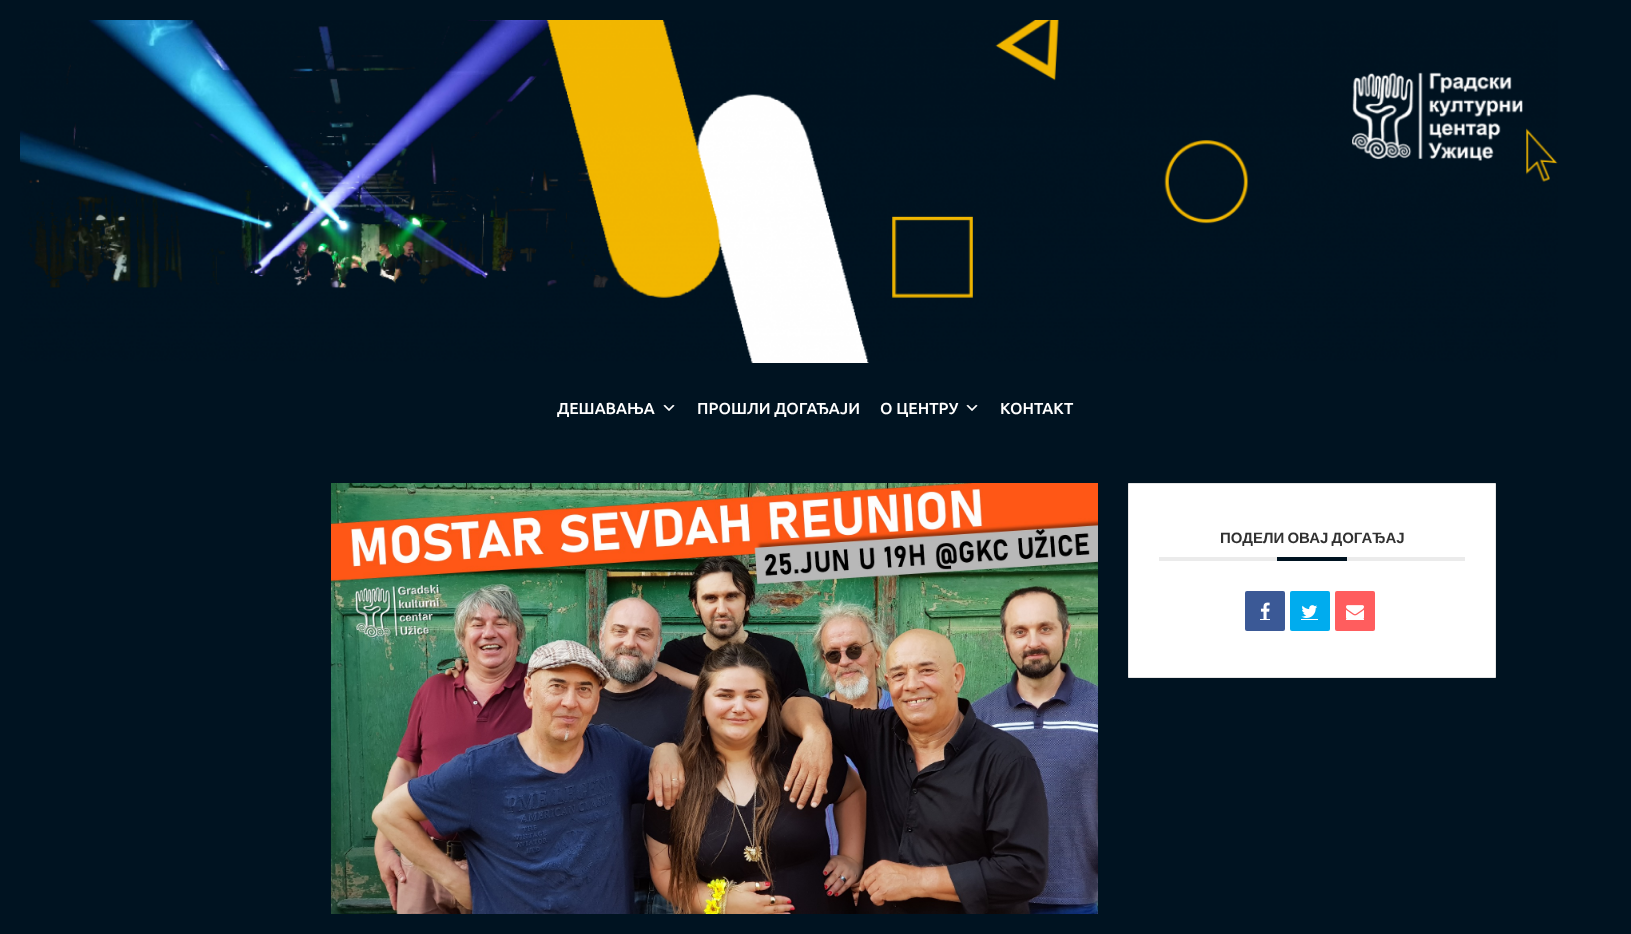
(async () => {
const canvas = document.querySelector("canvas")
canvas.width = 1631
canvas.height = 934
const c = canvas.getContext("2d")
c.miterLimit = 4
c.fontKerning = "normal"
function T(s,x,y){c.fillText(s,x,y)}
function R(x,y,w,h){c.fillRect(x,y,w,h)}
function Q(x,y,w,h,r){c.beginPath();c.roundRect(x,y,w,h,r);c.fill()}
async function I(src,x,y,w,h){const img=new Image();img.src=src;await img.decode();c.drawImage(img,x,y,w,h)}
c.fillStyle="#001321"
R(0,0,1631,934)
await I("1.png",20,20,1538,343)
c.font="500 16px Ubuntu"
c.fillStyle="#fff"
T("ДЕШАВАЊА",557,414)
await I("2.png",663,404,12,7)
T("ПРОШЛИ ДОГАЂАЈИ",697,414)
T("О ЦЕНТРУ",880,414)
await I("2.png",966,404,12,7)
T("КОНТАКТ",1000,414)
await I("3.png",331,483,767,431)
c.beginPath()
c.rect(1128.5,483.5,367,194)
c.fill()
c.strokeStyle="#e6e6e6"
c.stroke()
c.fillStyle="#ebebeb"
R(1159,557,306,4)
c.wordSpacing="-1px"
c.font="bold 15px Liberation Sans"
c.fillStyle="#313131"
T("ПОДЕЛИ ОВАЈ ДОГАЂАЈ",1220,543)
c.fillStyle="#001321"
R(1277,557,70,4)
c.fillStyle="#3b5996"
Q(1245,591,40,40,2)
await I("4.png",1260,602,10,17)
c.fillStyle="#fff"
R(1260,619,10,1)
c.fillStyle="#00acee"
Q(1290,591,40,40,2)
await I("5.png",1301,605,17,13)
c.fillStyle="#fff"
R(1301,619,17,1)
c.fillStyle="#ff5d5e"
Q(1335,591,40,40,2)
await I("6.png",1346,605,18,14)
c.fillStyle="#fff"
R(1346,619,18,1)
})()
